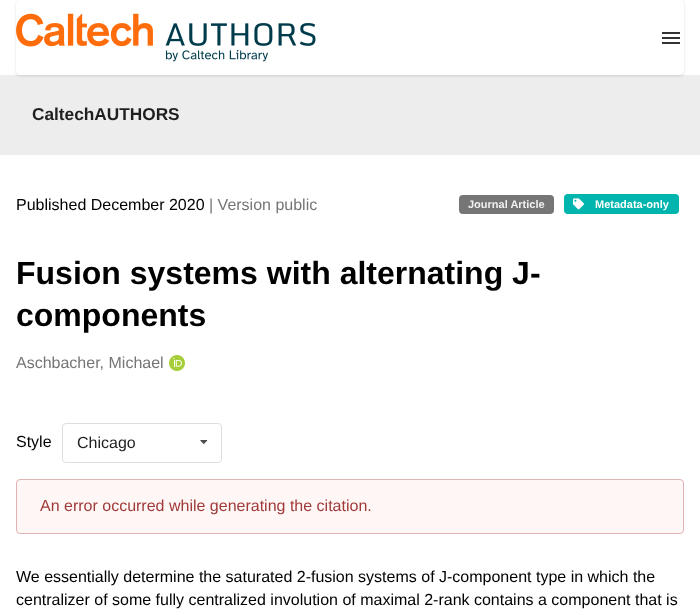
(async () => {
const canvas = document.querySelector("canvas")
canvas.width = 700
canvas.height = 615
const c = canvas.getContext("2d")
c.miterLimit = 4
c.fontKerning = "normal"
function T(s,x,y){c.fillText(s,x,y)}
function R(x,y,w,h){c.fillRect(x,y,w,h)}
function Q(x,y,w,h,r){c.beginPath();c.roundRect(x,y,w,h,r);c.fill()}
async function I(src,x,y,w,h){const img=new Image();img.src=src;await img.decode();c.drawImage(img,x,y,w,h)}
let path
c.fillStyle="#fff"
R(0,0,700,615)
c.fillStyle="#ededed"
R(0,75,700,80)
c.save()
path = new Path2D("M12 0h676v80h-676zm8 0h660c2 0 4 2 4 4v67c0 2-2 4-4 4h-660c-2 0-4-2-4-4v-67c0-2 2-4 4-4z")
c.clip(path,"evenodd")
c.fillStyle="#22242626"
c.filter="blur(1px)"
c.beginPath()
c.roundRect(16,1,668,75,4)
c.fill()
c.filter="none"
c.restore()
await I("1.png",16,13,300,49)
c.fillStyle="#333"
R(662,37,18,2)
R(662,32,18,2)
R(662,42,18,2)
c.font="bold 17.25px Liberation Sans"
c.fillStyle="#1f1f1f"
T("CaltechAUTHORS",32,120)
c.font="16px Liberation Sans"
c.fillStyle="#000"
T("Published December 2020",16,210)
c.fillStyle="#757575"
T("| Version public",209,210)
c.fillStyle="#767676"
Q(459,195,95,19,4)
c.font="bold 11px Liberation Sans"
c.fillStyle="#f1f1f1"
T("Journal Article",468,208)
c.fillStyle="#00b5ad"
Q(564,194,115,20,4)
await I("2.png",573,198,11,12)
c.fillStyle="#fff"
T("Metadata-only",595,208)
c.font="bold 32px Liberation Sans"
c.fillStyle="#000"
T("Fusion systems with alternating J‐",16,284)
T("components",16,326)
c.font="16px Liberation Sans"
c.fillStyle="#757575"
T("Aschbacher, Michael",16,368)
await I("3.png",169,355,16,16)
c.fillStyle="#000"
T("Style",16,447)
c.beginPath()
c.roundRect(62.5,423.5,159,39,3.5)
c.strokeStyle="#dedede"
c.stroke()
c.fillStyle="#1f1f1f"
T("Chicago",77,448)
await I("4.png",200,440,8,4)
c.fillStyle="#fff6f6"
c.beginPath()
c.roundRect(16.5,479.5,667,54,3.5)
c.fill()
c.strokeStyle="#e0b4b4"
c.stroke()
c.fillStyle="#9f3a38"
T("An error occurred while generating the citation.",40,511)
c.fillStyle="#000"
T("We essentially determine the saturated 2‐fusion systems of J‐component type in which the",16,582)
T("centralizer of some fully centralized involution of maximal 2‐rank contains a component that is",16,605)
})()
